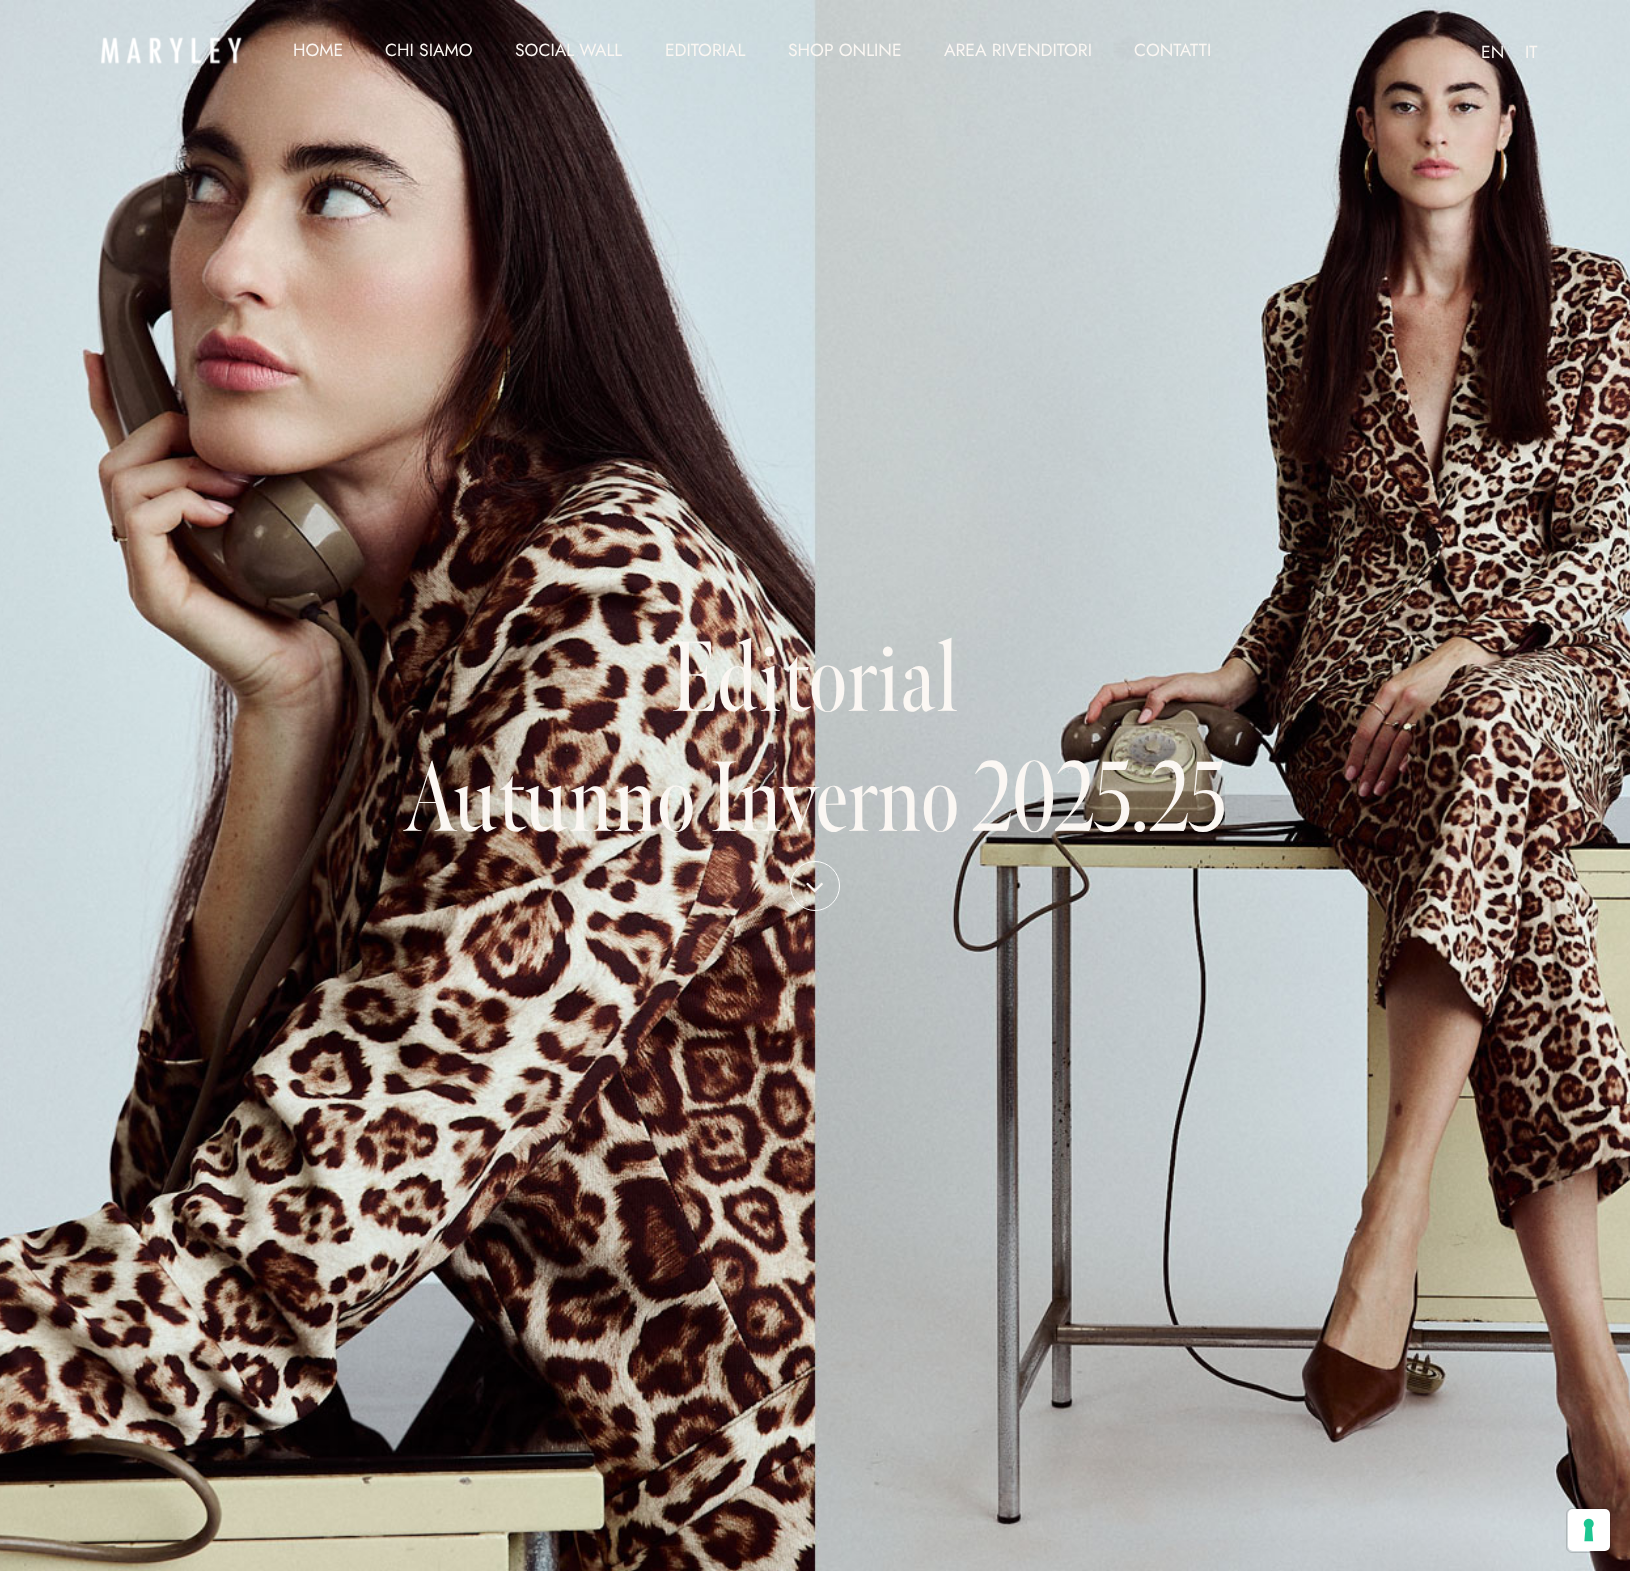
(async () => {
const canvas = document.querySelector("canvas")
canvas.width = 1630
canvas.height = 1571
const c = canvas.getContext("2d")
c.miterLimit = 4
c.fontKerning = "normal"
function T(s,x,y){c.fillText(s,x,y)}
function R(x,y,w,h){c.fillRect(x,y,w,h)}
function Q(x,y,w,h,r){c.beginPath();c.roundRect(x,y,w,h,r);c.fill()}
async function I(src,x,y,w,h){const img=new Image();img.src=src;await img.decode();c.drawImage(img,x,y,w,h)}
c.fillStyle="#fff"
R(0,0,1630,1571)
await I("2.png",0,0,1630,1571)
await I("1.png",101,37,141,27)
c.font="17.5px Jost"
c.fillStyle="#fbf7f3"
T("HOME",293,56)
T("CHI SIAMO",385,56)
T("SOCIAL WALL",515,56)
T("EDITORIAL",665,56)
T("SHOP ONLINE",788,56)
T("AREA RIVENDITORI",944,56)
T("CONTATTI",1134,56)
T("EN",1481,58)
T("IT",1525,58)
c.font="100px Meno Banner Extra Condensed"
T("Editorial",671,711)
T("Autunno Inverno 2025.25",403,831)
c.beginPath()
c.arc(815,886,24.5,0,7)
c.strokeStyle="#fff"
c.stroke()
await I("3.png",806,882,17,11)
c.beginPath()
c.roundRect(1566.5,1508.5,44,44,5.5)
c.strokeStyle="#00000026"
c.stroke()
c.fillStyle="#fff"
Q(1568,1509,42,42,5)
await I("4.png",1583,1518,11,24)
})()
